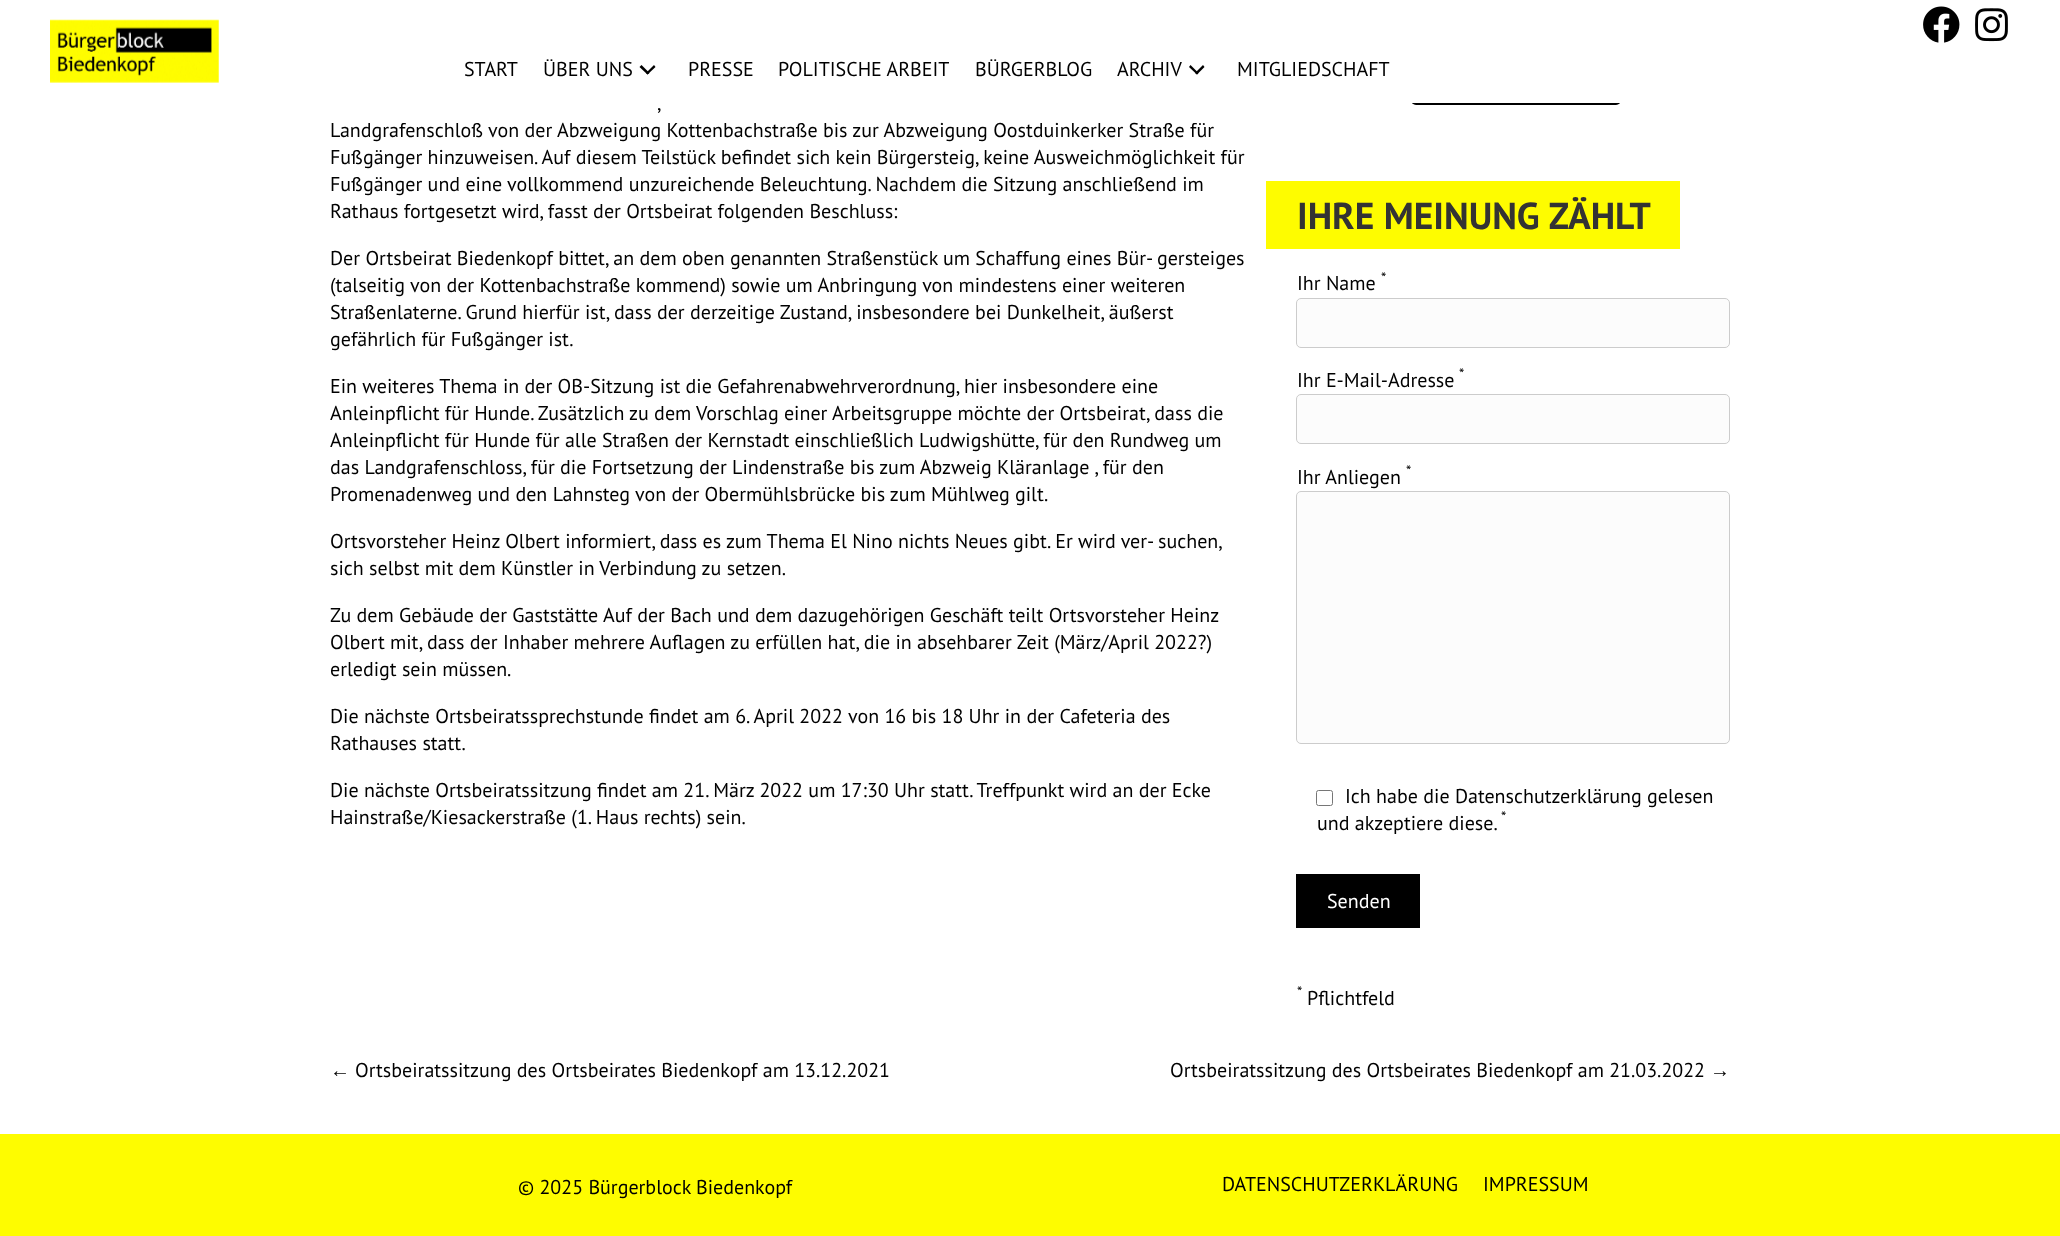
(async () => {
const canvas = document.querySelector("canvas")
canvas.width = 2060
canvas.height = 1236
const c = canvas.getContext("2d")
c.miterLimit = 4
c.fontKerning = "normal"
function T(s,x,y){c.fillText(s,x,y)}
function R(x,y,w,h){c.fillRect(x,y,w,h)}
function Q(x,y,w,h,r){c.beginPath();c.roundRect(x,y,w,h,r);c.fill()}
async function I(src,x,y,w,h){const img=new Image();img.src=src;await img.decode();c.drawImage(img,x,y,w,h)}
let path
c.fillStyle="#fff"
R(0,0,2060,1236)
c.fillStyle="#000"
Q(1411,63,210,42,5)
c.fillStyle="#fff"
R(1411,63,210,40)
await I("1.png",50,19,169,64)
await I("2.png",1923,6,37,37)
await I("3.png",1975,8,33,34)
c.font="20px PT Sans"
c.fillStyle="#000"
T("START",464,76)
T("ÜBER UNS",543,76)
path = new Path2D("M654 65l1.5 2l-8 7.5l-1.5-1.5z")
c.fill(path)
path = new Path2D("M641.5 65l8 8l-2 1.5l-8-7.5z")
c.fill(path)
T("PRESSE",688,76)
T("POLITISCHE ARBEIT",778,76)
T("BÜRGERBLOG",975,76)
T("ARCHIV",1117,76)
path = new Path2D("M1203 65l1.5 2l-7.5 7.5l-2-1.5z")
c.fill(path)
path = new Path2D("M1190.5 65l8 8l-1.5 1.5l-8-7.5z")
c.fill(path)
T("MITGLIEDSCHAFT",1237,76)
T(",",657,110)
T("Landgrafenschloß von der Abzweigung Kottenbachstraße bis zur Abzweigung Oostduinkerker Straße für",330,137)
T("Fußgänger hinzuweisen. Auf diesem Teilstück befindet sich kein Bürgersteig, keine Ausweichmöglichkeit für",330,164)
T("Fußgänger und eine vollkommend unzureichende Beleuchtung. Nachdem die Sitzung anschließend im",330,191)
T("Rathaus fortgesetzt wird, fasst der Ortsbeirat folgenden Beschluss:",330,218)
T("Der Ortsbeirat Biedenkopf bittet, an dem oben genannten Straßenstück um Schaffung eines Bür- gersteiges",330,265)
T("(talseitig von der Kottenbachstraße kommend) sowie um Anbringung von mindestens einer weiteren",330,292)
T("Straßenlaterne. Grund hierfür ist, dass der derzeitige Zustand, insbesondere bei Dunkelheit, äußerst",330,319)
T("gefährlich für Fußgänger ist.",330,346)
T("Ein weiteres Thema in der OB-Sitzung ist die Gefahrenabwehrverordnung, hier insbesondere eine",330,393)
T("Anleinpflicht für Hunde. Zusätzlich zu dem Vorschlag einer Arbeitsgruppe möchte der Ortsbeirat, dass die",330,420)
T("Anleinpflicht für Hunde für alle Straßen der Kernstadt einschließlich Ludwigshütte, für den Rundweg um",330,447)
T("das Landgrafenschloss, für die Fortsetzung der Lindenstraße bis zum Abzweig Kläranlage , für den",330,474)
T("Promenadenweg und den Lahnsteg von der Obermühlsbrücke bis zum Mühlweg gilt.",330,501)
T("Ortsvorsteher Heinz Olbert informiert, dass es zum Thema El Nino nichts Neues gibt. Er wird ver- suchen,",330,548)
T("sich selbst mit dem Künstler in Verbindung zu setzen.",330,575)
T("Zu dem Gebäude der Gaststätte Auf der Bach und dem dazugehörigen Geschäft teilt Ortsvorsteher Heinz",330,622)
T("Olbert mit, dass der Inhaber mehrere Auflagen zu erfüllen hat, die in absehbarer Zeit (März/April 2022?)",330,649)
T("erledigt sein müssen.",330,676)
T("Die nächste Ortsbeiratssprechstunde findet am 6. April 2022 von 16 bis 18 Uhr in der Cafeteria des",330,723)
T("Rathauses statt.",330,750)
T("Die nächste Ortsbeiratssitzung findet am 21. März 2022 um 17:30 Uhr statt. Treffpunkt wird an der Ecke",330,797)
T("Hainstraße/Kiesackerstraße (1. Haus rechts) sein.",330,824)
c.fillStyle="#fefc00"
R(1266,181,414,68)
c.font="bold 37.5px PT Sans"
c.fillStyle="#333"
T("IHRE MEINUNG ZÄHLT",1297,229)
c.font="15px PT Sans"
c.fillStyle="#000"
T("*",1381,283)
c.font="20px PT Sans"
T("Ihr Name",1297,290)
c.fillStyle="#fcfcfc"
c.beginPath()
c.roundRect(1296.5,298.5,433,49,4.5)
c.fill()
c.strokeStyle="#ccc"
c.stroke()
c.font="15px PT Sans"
c.fillStyle="#000"
T("*",1459,379)
c.font="20px PT Sans"
T("Ihr E-Mail-Adresse",1297,387)
c.fillStyle="#fcfcfc"
c.beginPath()
c.roundRect(1296.5,394.5,433,49,4.5)
c.fill()
c.stroke()
c.font="15px PT Sans"
c.fillStyle="#000"
T("*",1406,476)
c.font="20px PT Sans"
T("Ihr Anliegen",1297,484)
c.fillStyle="#fcfcfc"
c.beginPath()
c.roundRect(1296.5,491.5,433,252,4.5)
c.fill()
c.stroke()
c.beginPath()
c.roundRect(1316.5,790.5,16,15,2)
c.strokeStyle="#767676"
c.stroke()
c.fillStyle="#000"
T("Ich habe die Datenschutzerklärung gelesen",1345,803)
c.font="15px PT Sans"
T("*",1501,822)
c.font="20px PT Sans"
T("und akzeptiere diese.",1317,830)
R(1296,874,124,54)
c.fillStyle="#fff"
T("Senden",1327,908)
c.font="15px PT Sans"
c.fillStyle="#000"
T("*",1297,997)
c.font="20px PT Sans"
T("Pflichtfeld",1307,1005)
c.font="20px Liberation Sans"
T("←",330,1077)
c.font="20px PT Sans"
T("Ortsbeiratssitzung des Ortsbeirates Biedenkopf am 13.12.2021",355,1077)
T("Ortsbeiratssitzung des Ortsbeirates Biedenkopf am 21.03.2022",1170,1077)
c.font="20px Liberation Sans"
T("→",1710,1077)
c.fillStyle="#fefc00"
R(0,1134,2060,102)
c.font="20px PT Sans"
c.fillStyle="#000"
T("© 2025 Bürgerblock Biedenkopf",518,1194)
T("DATENSCHUTZERKLÄRUNG",1222,1191)
T("IMPRESSUM",1483,1191)
})()
